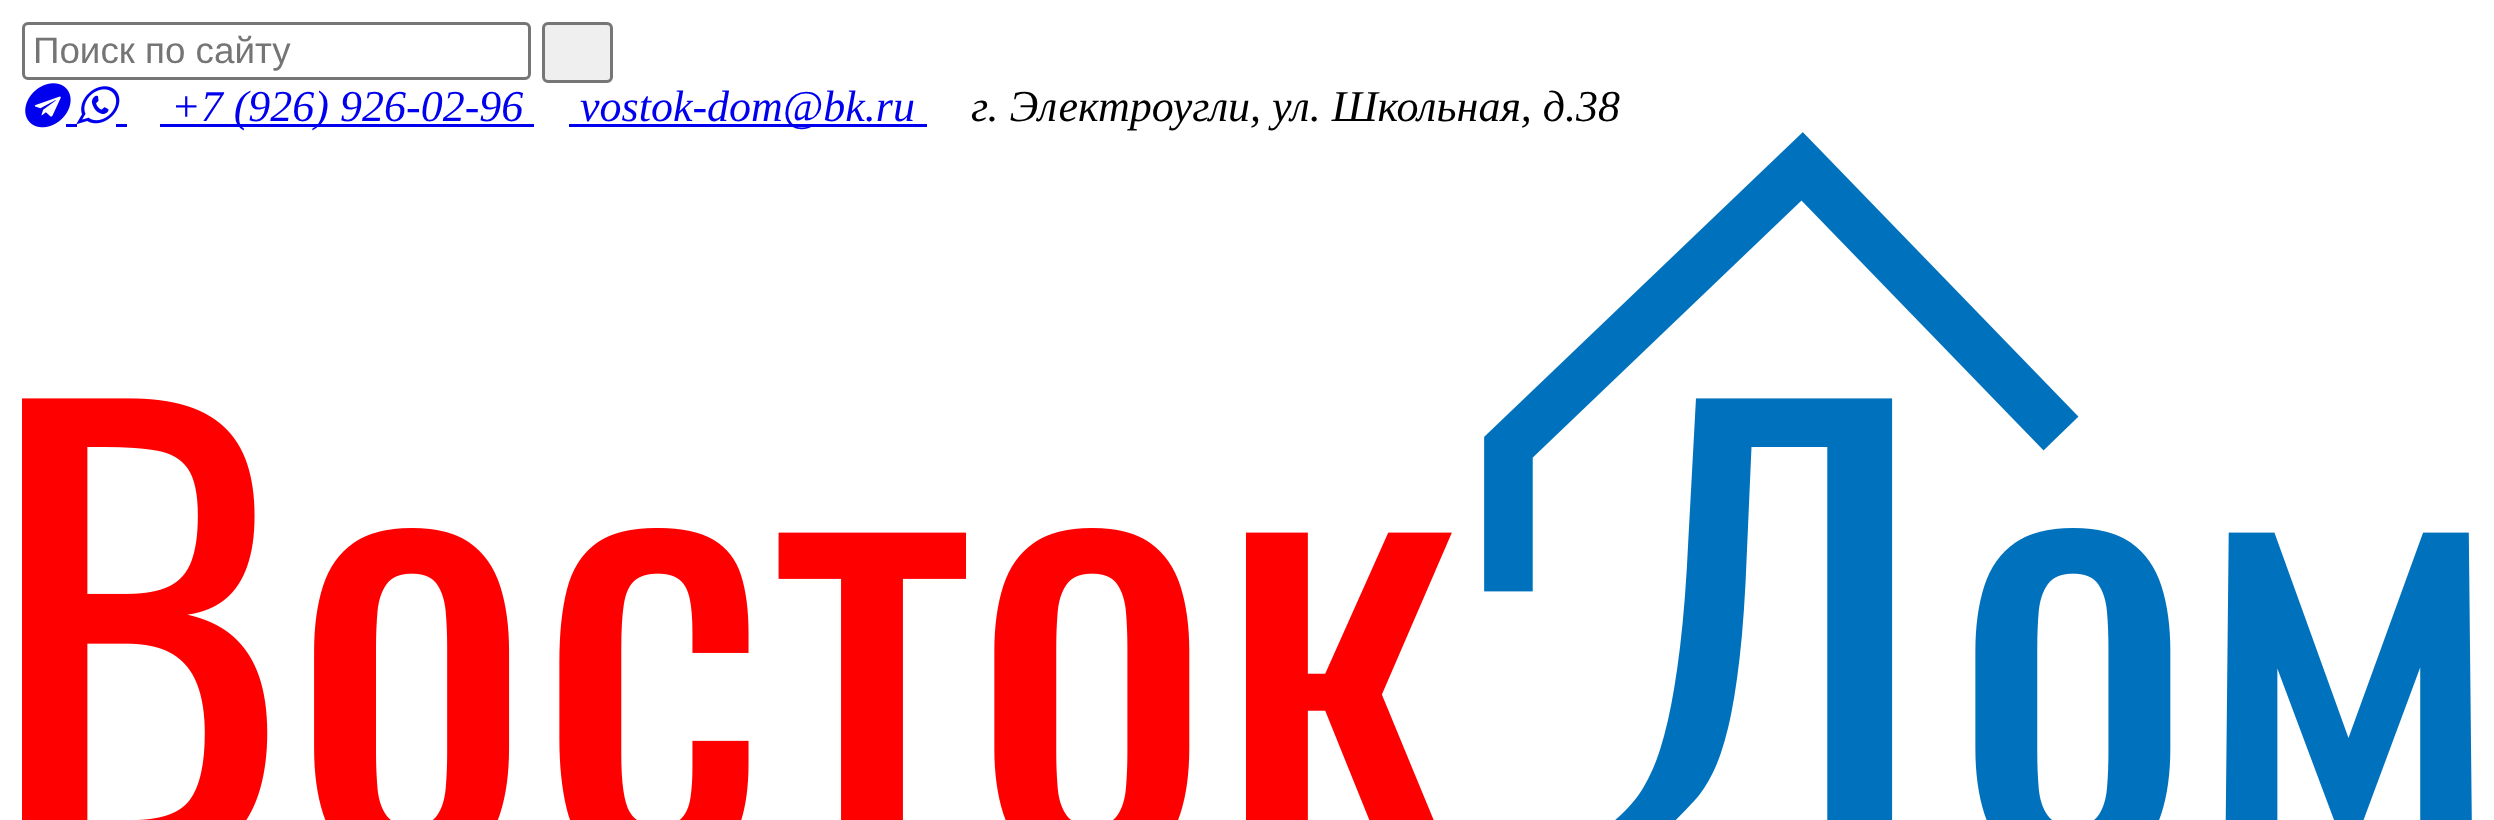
(async () => {
const canvas = document.querySelector("canvas")
canvas.width = 2494
canvas.height = 820
const c = canvas.getContext("2d")
c.miterLimit = 4
c.fontKerning = "normal"
function T(s,x,y){c.fillText(s,x,y)}
function R(x,y,w,h){c.fillRect(x,y,w,h)}
async function I(src,x,y,w,h){const img=new Image();img.src=src;await img.decode();c.drawImage(img,x,y,w,h)}
c.fillStyle="#fff"
R(0,0,2494,820)
c.beginPath()
c.roundRect(23.5,23.5,506,55,4.5)
c.strokeStyle="#767676"
c.lineWidth=3
c.stroke()
c.font="36.75px Liberation Sans"
c.fillStyle="#757575"
T("Поиск по сайту",33,63)
c.fillStyle="#efefef"
c.beginPath()
c.roundRect(543.5,23.5,68,58,4.5)
c.fill()
c.stroke()
await I("1.png",25,83,46,45)
c.fillStyle="#00e"
R(66,124,11,3)
await I("2.png",76,86,44,38)
R(116,124,11,3)
R(160,124,374,3)
c.font="italic 44px Liberation Serif"
T("+7 (926) 926-02-96",171,121)
R(569,124,358,3)
T("vostok-dom@bk.ru",580,121)
c.fillStyle="#000"
T("г. Электроугли, ул. Школьная, д.38",971,121)
await I("3.png",22,132,2450,688)
})()
